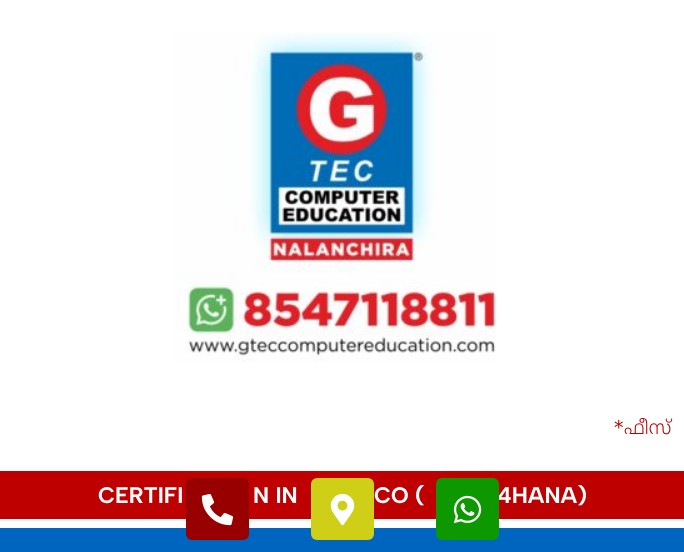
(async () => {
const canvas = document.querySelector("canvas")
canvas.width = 684
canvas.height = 552
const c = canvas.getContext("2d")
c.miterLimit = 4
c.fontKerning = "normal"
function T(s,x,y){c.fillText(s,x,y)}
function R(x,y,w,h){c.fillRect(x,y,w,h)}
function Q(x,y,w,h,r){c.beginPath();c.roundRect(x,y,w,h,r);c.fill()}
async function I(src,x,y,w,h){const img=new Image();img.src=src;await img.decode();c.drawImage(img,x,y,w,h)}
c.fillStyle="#fff"
R(0,0,684,552)
await I("1.png",175,32,321,330)
c.font="19px DejaVu Sans"
c.fillStyle="#b30303"
T("*",614,434)
c.font="300 19px Noto Sans Malayalam"
T("ഫീസ്",624,434)
c.fillStyle="#0065bf"
R(0,528,684,24)
c.fillStyle="#bf0000"
R(0,471,684,48)
c.fillStyle="#980000"
Q(186,478,63,62,6)
await I("2.png",201,493,33,33)
c.fillStyle="#cecf16"
Q(311,478,63,62,6)
await I("3.png",330,493,25,33)
c.font="bold 22.5px Albert Sans"
c.fillStyle="#fff"
T("4HANA)",497,503)
c.fillStyle="#0d9800"
Q(436,478,63,62,6)
await I("4.png",453,495,29,29)
c.fillStyle="#fff"
T("CERTIFI",98,503)
T("N IN",253,503)
T("CO (",374,503)
})()
